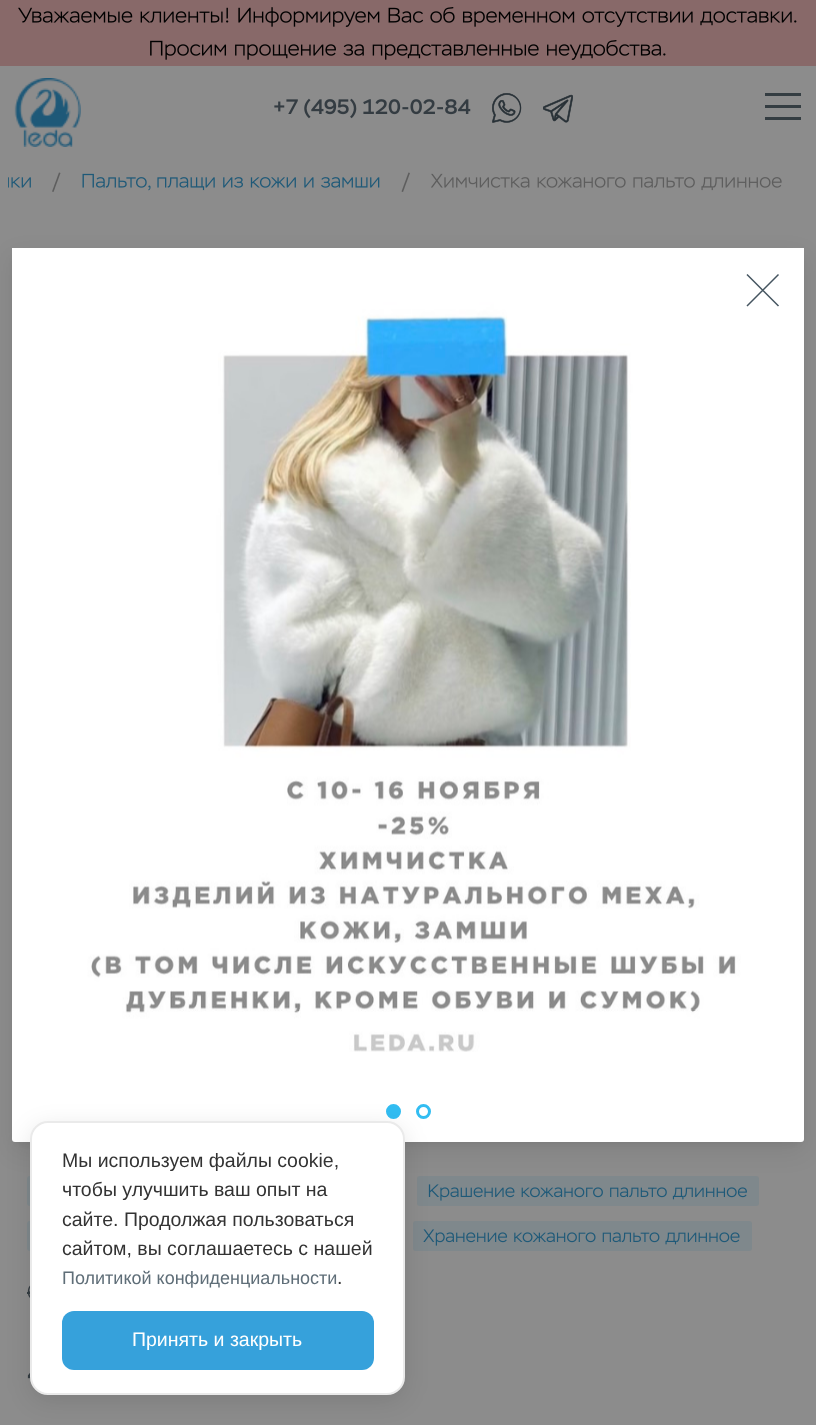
(async () => {
const canvas = document.querySelector("canvas")
canvas.width = 816
canvas.height = 1425
const c = canvas.getContext("2d")
c.miterLimit = 4
c.fontKerning = "normal"
function T(s,x,y){c.fillText(s,x,y)}
function R(x,y,w,h){c.fillRect(x,y,w,h)}
function Q(x,y,w,h,r){c.beginPath();c.roundRect(x,y,w,h,r);c.fill()}
async function I(src,x,y,w,h){const img=new Image();img.src=src;await img.decode();c.drawImage(img,x,y,w,h)}
let path
c.fillStyle="#8c8c8c"
R(0,0,816,1425)
c.fillStyle="#7f888c"
Q(27,1176,378,30,3)
Q(417,1176,342,30,3)
await I("11.png",428,1184,319,17)
c.fillStyle="#00000014"
c.filter="blur(12px)"
c.beginPath()
c.roundRect(12,257,792,894,3)
c.fill()
c.filter="none"
c.fillStyle="#0000001f"
c.filter="blur(4.5px)"
c.beginPath()
c.rect(18,258,780,882)
c.fill()
c.filter="none"
c.fillStyle="#fff"
Q(12,248,792,894,3)
await I("1.png",12,248,792,804)
c.fillStyle="#32bdf2"
c.beginPath()
c.arc(393.5,1111.5,6,0,7)
c.fill()
c.strokeStyle="#32bdf2"
c.lineWidth=3
c.stroke()
c.beginPath()
c.arc(423.5,1111.5,6,0,7)
c.stroke()
path = new Path2D("M747 274.5l31.5 31.5m0-31.5l-31.5 31.5")
c.strokeStyle="#455560"
c.lineWidth=1.5
c.stroke(path)
c.fillStyle="#886969"
R(0,0,816,66)
await I("2.png",18,7,779,20)
await I("3.png",150,40,516,20)
await I("4.png",14,78,67,69)
await I("5.png",274,98,197,21)
await I("6.png",492,93,30,30)
await I("7.png",543,94,30,29)
c.fillStyle="#343d42"
R(765,93,36,3)
R(765,105,36,3)
R(765,117,36,3)
await I("8.png",8,177,23,11)
c.fillStyle="#5e5e5e"
path = new Path2D("M53.5 192l-1.5-.5l7-19l1.5 .5z")
c.fill(path)
await I("9.png",82,173,298,18)
path = new Path2D("M403 192l-1.5-.5l7-19l1.5 .5z")
c.fill(path)
await I("10.png",431,173,351,18)
c.fillStyle="#7f888c"
Q(27,1221,374,30,3)
Q(413,1221,339,30,3)
await I("12.png",423,1229,317,17)
await I("13.png",27,1285,3,13)
c.fillStyle="#343d42"
R(27,1292,3,2)
await I("14.png",27,1373,4,6)
c.fillStyle="#0000001a"
c.filter="blur(12px)"
c.beginPath()
c.roundRect(30,1127,375,274,18)
c.fill()
c.filter="none"
c.fillStyle="#fff"
c.beginPath()
c.roundRect(31,1122,373,272,17)
c.fill()
c.strokeStyle="#eaeaea"
c.lineWidth=2
c.stroke()
c.font="19.5px Liberation Sans"
c.fillStyle="#333"
T("Мы используем файлы cookie,",62,1167)
T("чтобы улучшить ваш опыт на",62,1196)
T("сайте. Продолжая пользоваться",62,1226)
T("сайтом, вы соглашаетесь с нашей",62,1255)
c.font="18px Liberation Sans"
c.fillStyle="#5f6e78"
T("Политикой конфиденциальности",62,1284)
c.font="19.5px Liberation Sans"
c.fillStyle="#333"
T(".",337,1284)
c.fillStyle="#36a1db"
Q(62,1311,312,59,12)
c.fillStyle="#fff"
T("Принять и закрыть",132,1346)
})()
